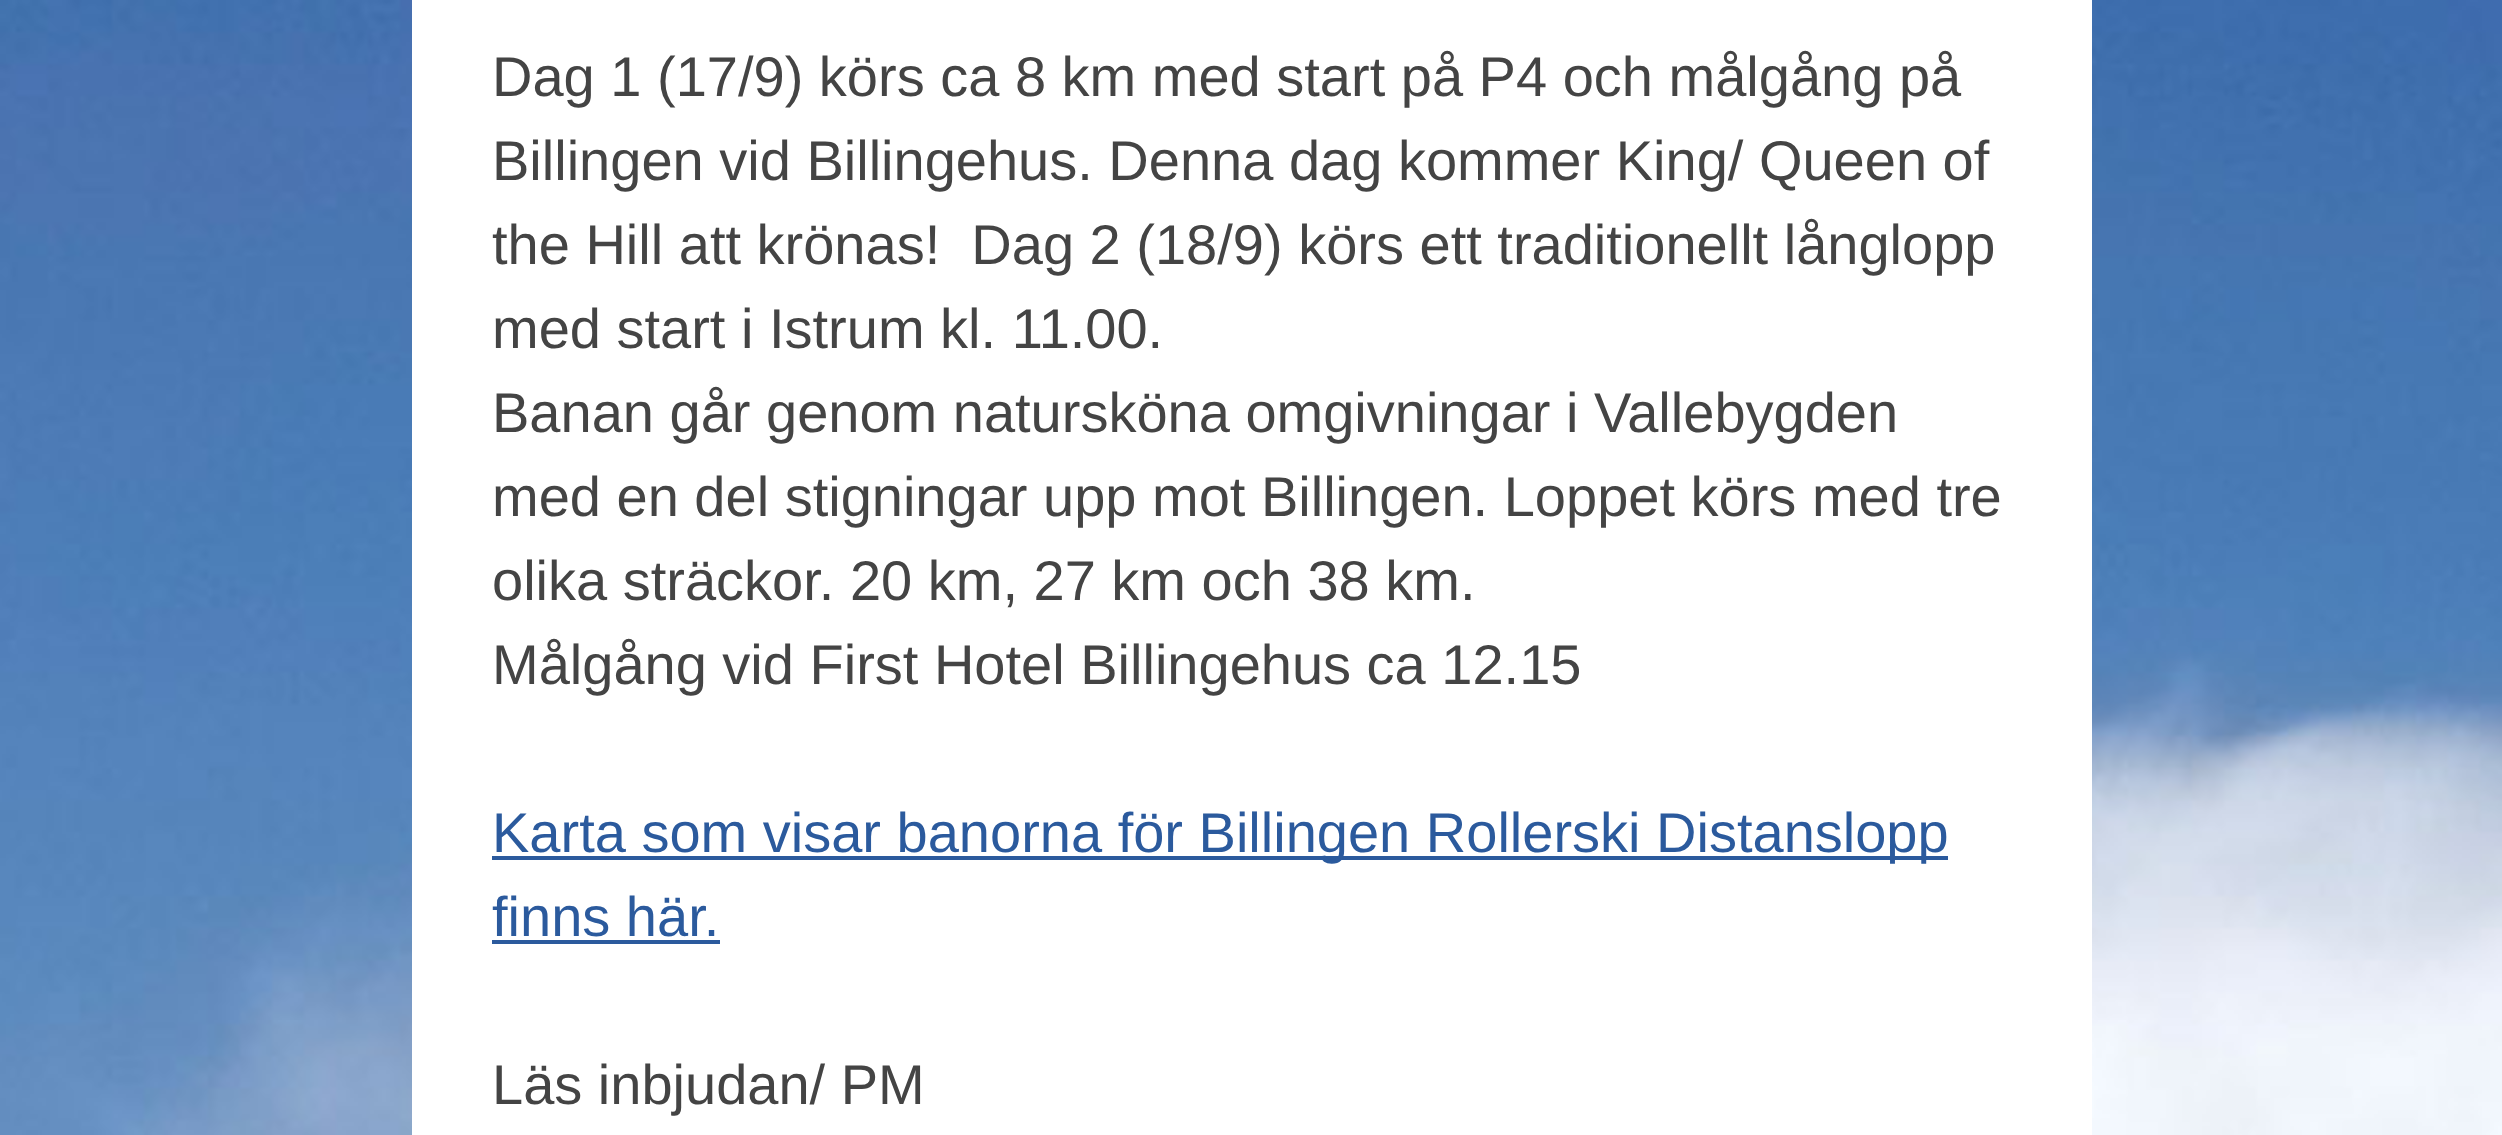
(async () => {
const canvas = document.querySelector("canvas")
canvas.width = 2502
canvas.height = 1135
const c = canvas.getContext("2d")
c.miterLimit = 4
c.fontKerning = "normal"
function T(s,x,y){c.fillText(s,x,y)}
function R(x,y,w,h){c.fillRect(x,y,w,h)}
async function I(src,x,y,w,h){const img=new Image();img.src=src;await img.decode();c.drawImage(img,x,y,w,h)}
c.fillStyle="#fff"
R(0,0,2502,1135)
await I("1.png",0,0,2502,1135)
R(412,0,1680,1135)
c.font="56px Liberation Sans"
c.fillStyle="#444"
T("Dag 1 (17/9) körs ca 8 km med start på P4 och målgång på",492,96)
T("Billingen vid Billingehus. Denna dag kommer King/ Queen of",492,180)
T("the Hill att krönas!  Dag 2 (18/9) körs ett traditionellt långlopp",492,264)
T("med start i Istrum kl. 11.00.",492,348)
T("Banan går genom natursköna omgivningar i Vallebygden",492,432)
T("med en del stigningar upp mot Billingen. Loppet körs med tre",492,516)
T("olika sträckor. 20 km, 27 km och 38 km.",492,600)
T("Målgång vid First Hotel Billingehus ca 12.15",492,684)
c.fillStyle="#2b5a9d"
R(492,856,1456,4)
T("Karta som visar banorna för Billingen Rollerski Distanslopp",492,852)
T("finns här.",492,936)
R(492,940,228,4)
c.fillStyle="#444"
T("Läs inbjudan/ PM",492,1104)
})()
